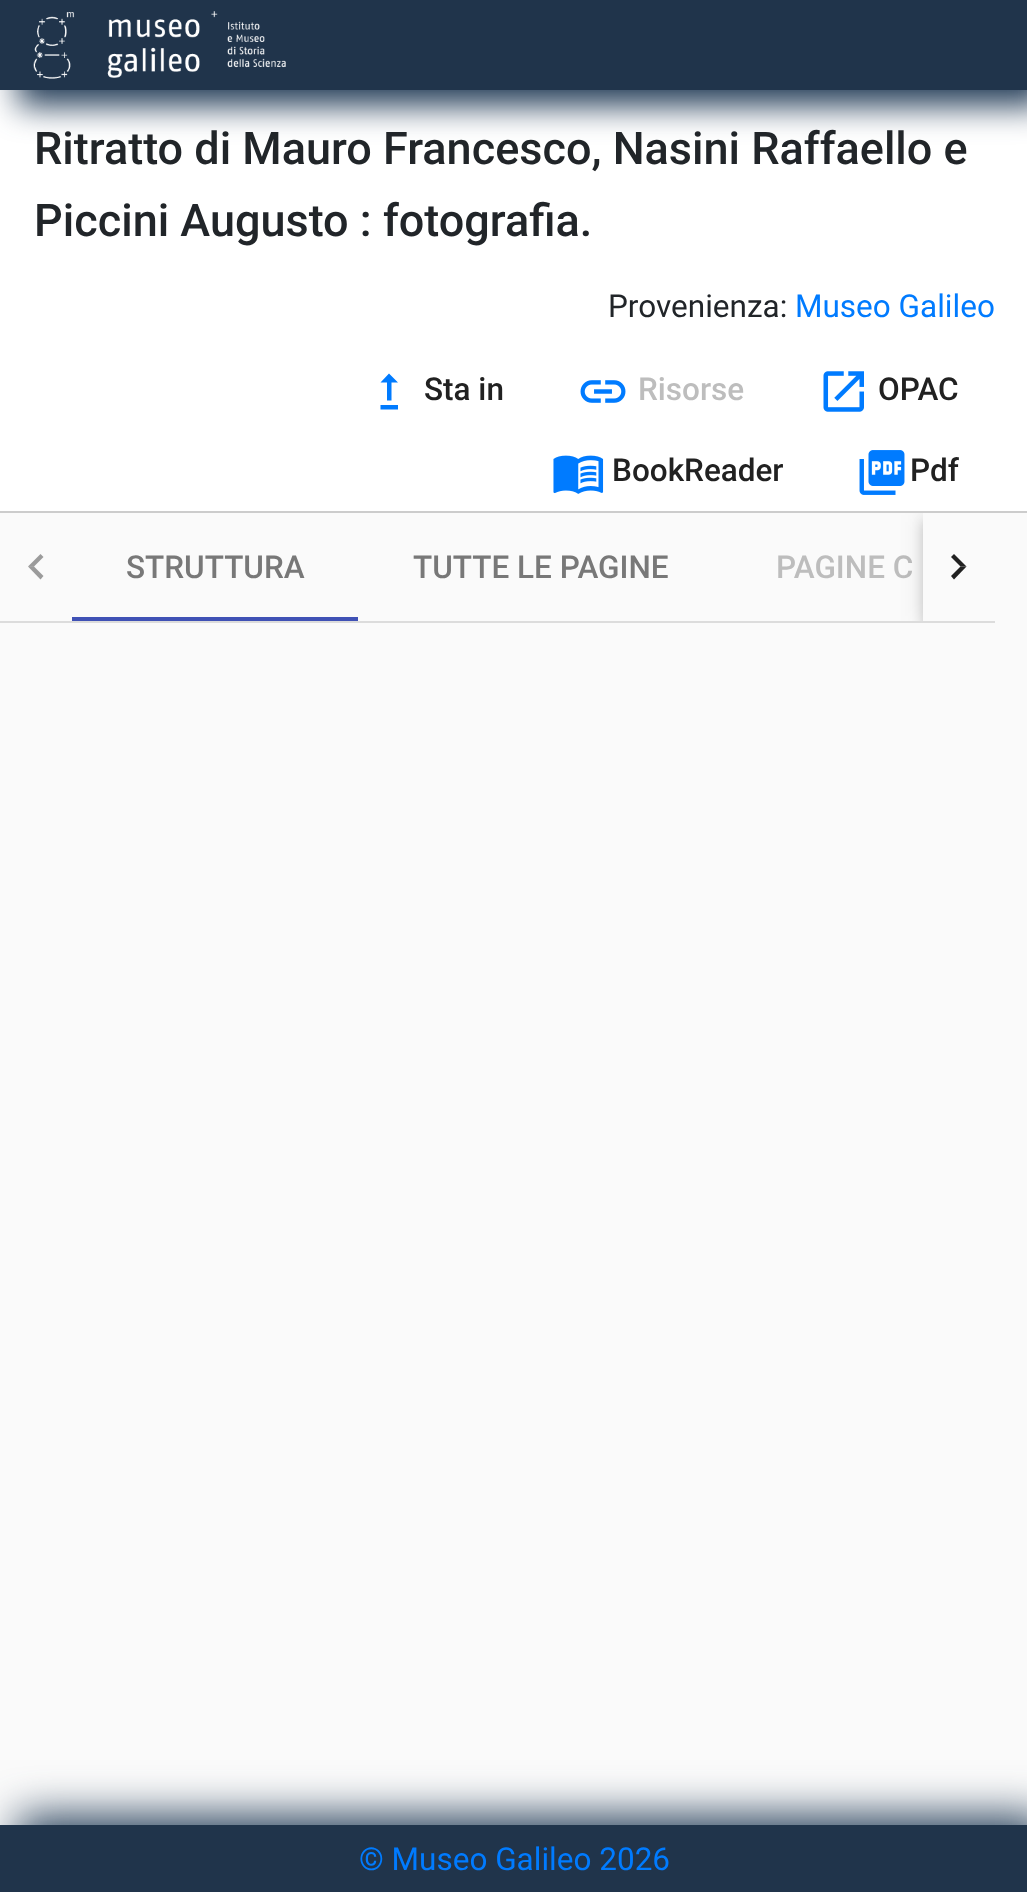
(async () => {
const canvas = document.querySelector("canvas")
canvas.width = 1027
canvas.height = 1892
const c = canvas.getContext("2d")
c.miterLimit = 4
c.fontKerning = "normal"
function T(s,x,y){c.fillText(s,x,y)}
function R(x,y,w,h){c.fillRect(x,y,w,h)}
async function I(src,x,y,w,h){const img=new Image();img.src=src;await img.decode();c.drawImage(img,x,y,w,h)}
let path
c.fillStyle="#fff"
R(0,0,1027,1892)
c.fillStyle="#253e59"
c.filter="blur(16px)"
c.beginPath()
c.rect(18,16,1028,90)
c.fill()
c.filter="none"
c.fillStyle="#20344b"
R(0,0,1027,90)
await I("1.png",33,11,253,68)
c.fillStyle="#ccc"
R(0,511,1027,2)
c.font="500 45px Roboto"
c.fillStyle="#212529"
T("Ritratto di Mauro Francesco, Nasini Raffaello e",34,164)
T("Piccini Augusto : fotografia.",34,236)
c.font="31.5px Roboto"
T("Provenienza:",608,317)
c.fillStyle="#007bff"
T("Museo Galileo",795,317)
path = new Path2D("M398 405v4.5h-17.5v-4.5zm-11-22.5v18h4.5v-18h6.5l-9-9l-8.5 9z")
c.fill(path)
c.font="500 31.5px Roboto"
c.fillStyle="#212121"
T("Sta in",424,400)
await I("2.png",580,380,46,23)
c.fillStyle="#bdbdbd"
T("Risorse",638,400)
await I("3.png",823,371,41,41)
c.fillStyle="#212121"
T("OPAC",878,400)
await I("4.png",553,455,51,39)
T("BookReader",612,481)
await I("5.png",859,450,46,45)
T("Pdf",910,481)
c.fillStyle="#fafafa"
R(0,513,1027,1312)
c.fillStyle="#dcdcdc"
R(0,621,995,2)
c.fillStyle="#9b9b9b"
path = new Path2D("M40.5 579.5l-12.5-13h6l9.5 9.5z")
c.fill(path)
c.fillStyle="#00000061"
path = new Path2D("M28 566.5l12.5-12.5l3 3l-9.5 9.5z")
c.fill(path)
c.fillStyle="#787878"
T("STRUTTURA",126,578)
T("TUTTE LE PAGINE",413,578)
c.fillStyle="#bdbdbd"
T("PAGINE C",776,578)
c.fillStyle="#3f51b5"
R(72,617,286,4)
c.save()
c.beginPath()
c.rect(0,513,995,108)
c.clip()
path = new Path2D("M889 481h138v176h-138zm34 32h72v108h-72z")
c.clip(path,"evenodd")
c.fillStyle="#0000001f"
c.filter="blur(11px)"
c.beginPath()
c.rect(923,515,72,108)
c.fill()
c.filter="none"
c.restore()
c.save()
c.beginPath()
c.rect(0,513,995,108)
c.clip()
path = new Path2D("M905 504h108v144h-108zm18 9h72v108h-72z")
c.clip(path,"evenodd")
c.fillStyle="#00000024"
c.filter="blur(5.5px)"
c.beginPath()
c.rect(923,522,72,108)
c.fill()
c.filter="none"
c.restore()
c.fillStyle="#212121"
path = new Path2D("M954 554l12.5 12.5h-6l-9.5-9.5z")
c.fill(path)
path = new Path2D("M966.5 566.5l-12.5 13l-3-3.5l9.5-9.5z")
c.fill(path)
c.fillStyle="#253e59"
c.filter="blur(21.5px)"
c.beginPath()
c.rect(18,1816,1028,67)
c.fill()
c.filter="none"
c.fillStyle="#20344b"
R(0,1825,1027,67)
c.font="31.5px Roboto"
c.fillStyle="#007bff"
T("© Museo Galileo 2026",359,1870)
})()
